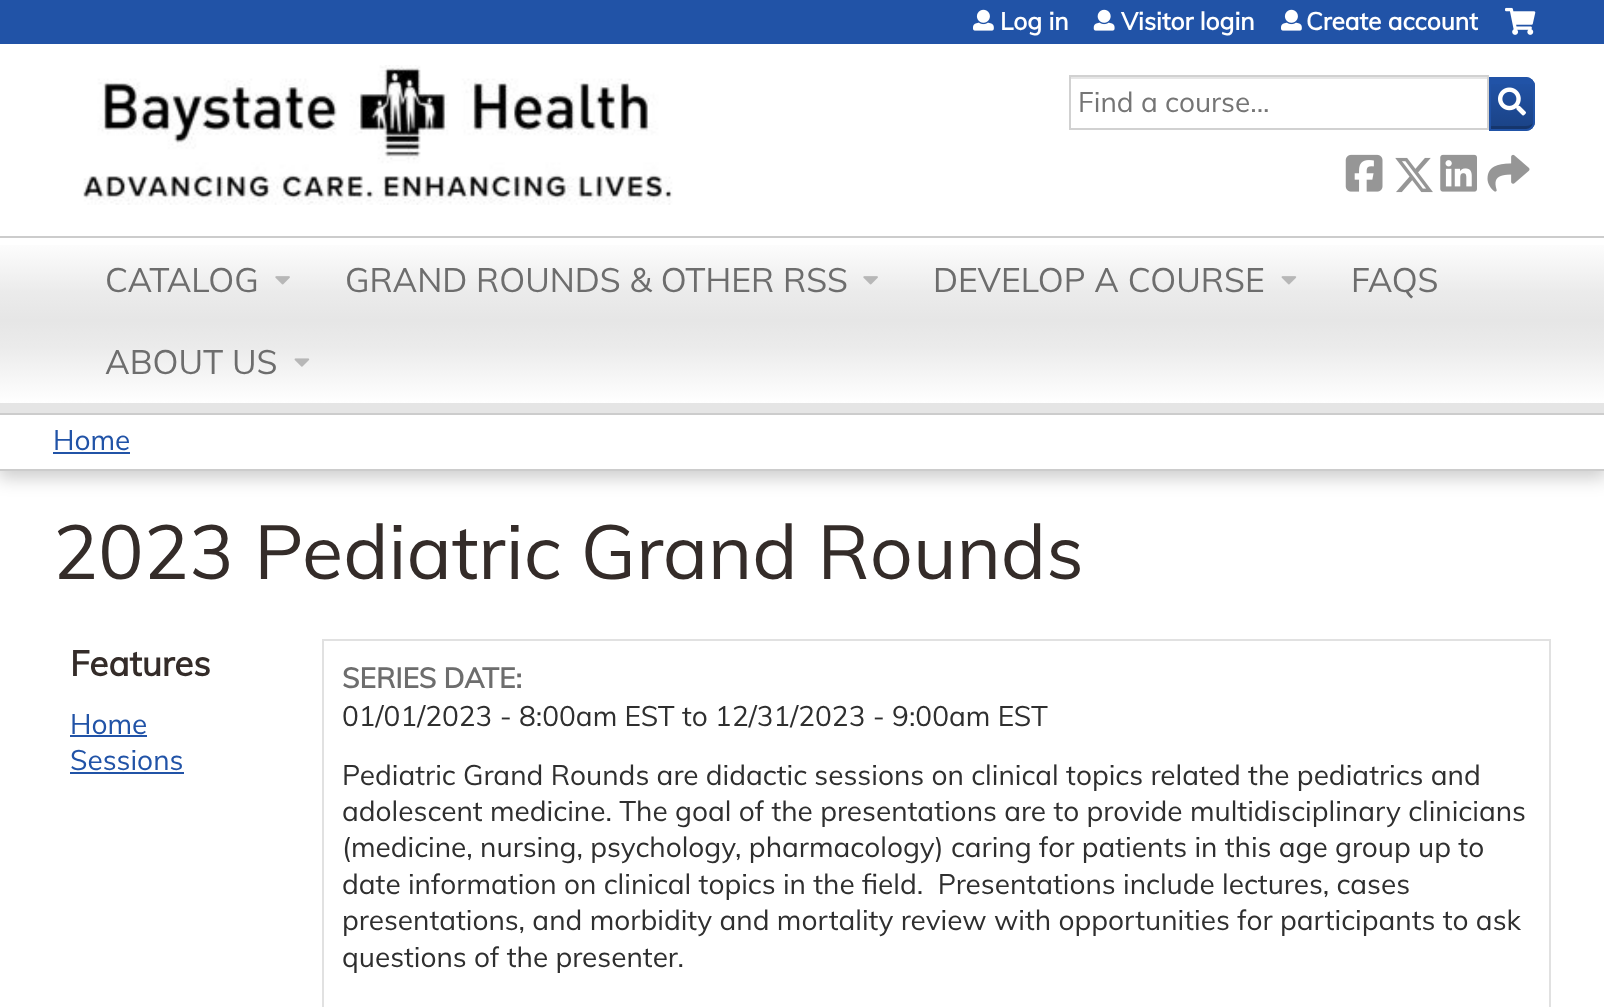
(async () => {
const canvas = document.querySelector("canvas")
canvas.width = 1604
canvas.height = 1007
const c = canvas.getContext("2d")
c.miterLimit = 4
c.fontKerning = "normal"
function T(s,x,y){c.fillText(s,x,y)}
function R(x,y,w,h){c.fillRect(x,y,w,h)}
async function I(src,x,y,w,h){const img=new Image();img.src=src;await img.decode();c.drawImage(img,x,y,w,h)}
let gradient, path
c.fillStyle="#fff"
R(0,0,1604,1007)
c.fillStyle="#2153a7"
R(0,0,1604,44)
await I("1.png",83,65,590,140)
await I("2.png",973,9,21,22)
c.font="bold 24.5px Muli"
c.fillStyle="#fff"
T("Log in",1000,30)
await I("3.png",1093,9,22,22)
T("Visitor login",1121,30)
await I("2.png",1281,9,21,22)
T("Create account",1306,30)
await I("4.png",1505,7,31,28)
c.fillStyle="#2153a7"
c.beginPath()
c.roundRect(1489,77,46,54,[0,9,9,0])
c.fill()
c.save()
c.beginPath()
c.roundRect(1489,77,46,54,[0,9,9,0])
c.clip()
gradient = c.createLinearGradient(1512,130,1512,79)
gradient.addColorStop(0,"#00000033")
gradient.addColorStop(1,"#00000000")
c.fillStyle = gradient
R(1491,84,44,46)
c.restore()
c.fillStyle="#00000033"
path = new Path2D("M1491 126v4h23c6 0 19 2 19-7c-2 2-4 3-7 3z")
c.fill(path)
c.beginPath()
c.roundRect(1490,78,44,52,[0,8,8,0])
c.strokeStyle="#2153a7"
c.lineWidth=2
c.stroke()
c.fillStyle="#e6e6e6"
R(1071,77,417,2)
c.strokeStyle="#d1d1d1"
c.strokeRect(1070,76,418,53)
c.font="28px Muli"
c.fillStyle="#757575"
T("Find a course...",1078,112)
await I("5.png",1498,87,28,29)
await I("6.png",1345,154,38,38)
await I("7.png",1395,157,38,36)
await I("8.png",1440,154,37,38)
await I("9.png",1487,154,43,38)
c.fillStyle="#00000033"
c.filter="blur(9px)"
c.beginPath()
c.rect(-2,417,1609,61)
c.fill()
c.filter="none"
gradient = c.createLinearGradient(802,238,802,403)
gradient.addColorStop(0,"#fff")
gradient.addColorStop(.33,"#ebebeb")
gradient.addColorStop(.5,"#e6e6e6")
gradient.addColorStop(.66,"#ebebeb")
gradient.addColorStop(1,"#fff")
c.fillStyle = gradient
R(0,245,1604,158)
c.fillStyle="#ccc"
R(0,236,1604,2)
c.fillStyle="#e5e5e5"
R(0,403,1604,10)
c.font="33.6px Muli"
c.fillStyle="#6d6d6d"
T("CATALOG",105,292)
await I("10.png",275,276,15,9)
T("GRAND ROUNDS & OTHER RSS",345,292)
await I("10.png",863,276,15,9)
T("DEVELOP A COURSE",933,292)
await I("11.png",1281,276,16,9)
T("FAQS",1351,292)
T("ABOUT US",105,374)
await I("12.png",294,358,16,9)
c.fillStyle="#fff"
R(0,415,1604,54)
c.fillStyle="#ccc"
R(0,413,1604,2)
R(0,469,1604,2)
c.font="28px Muli"
c.fillStyle="#2153a7"
T("Home",53,450)
R(53,452,77,2)
c.font="75.6px Muli"
c.fillStyle="#342c29"
T("2023 Pediatric Grand Rounds",53,579)
c.font="bold 35px Muli"
T("Features",70,676)
c.font="28px Muli"
c.fillStyle="#2153a7"
T("Home",70,734)
R(70,735,77,2)
T("Sessions",70,770)
R(70,772,114,2)
c.strokeStyle="#e1e1e1"
c.strokeRect(323,640,1227,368)
c.font="bold 28px Muli"
c.fillStyle="#6d6d6d"
T("SERIES DATE:",342,688)
c.font="28px Muli"
c.fillStyle="#2f2f2f"
T("01/01/2023 - 8:00am EST to 12/31/2023 - 9:00am EST",342,726)
T("Pediatric Grand Rounds are didactic sessions on clinical topics related the pediatrics and",342,785)
T("adolescent medicine. The goal of the presentations are to provide multidisciplinary clinicians",342,821)
T("(medicine, nursing, psychology, pharmacology) caring for patients in this age group up to",342,857)
T("date information on clinical topics in the field.  Presentations include lectures, cases",342,894)
T("presentations, and morbidity and mortality review with opportunities for participants to ask",342,930)
T("questions of the presenter.",342,967)
})()
